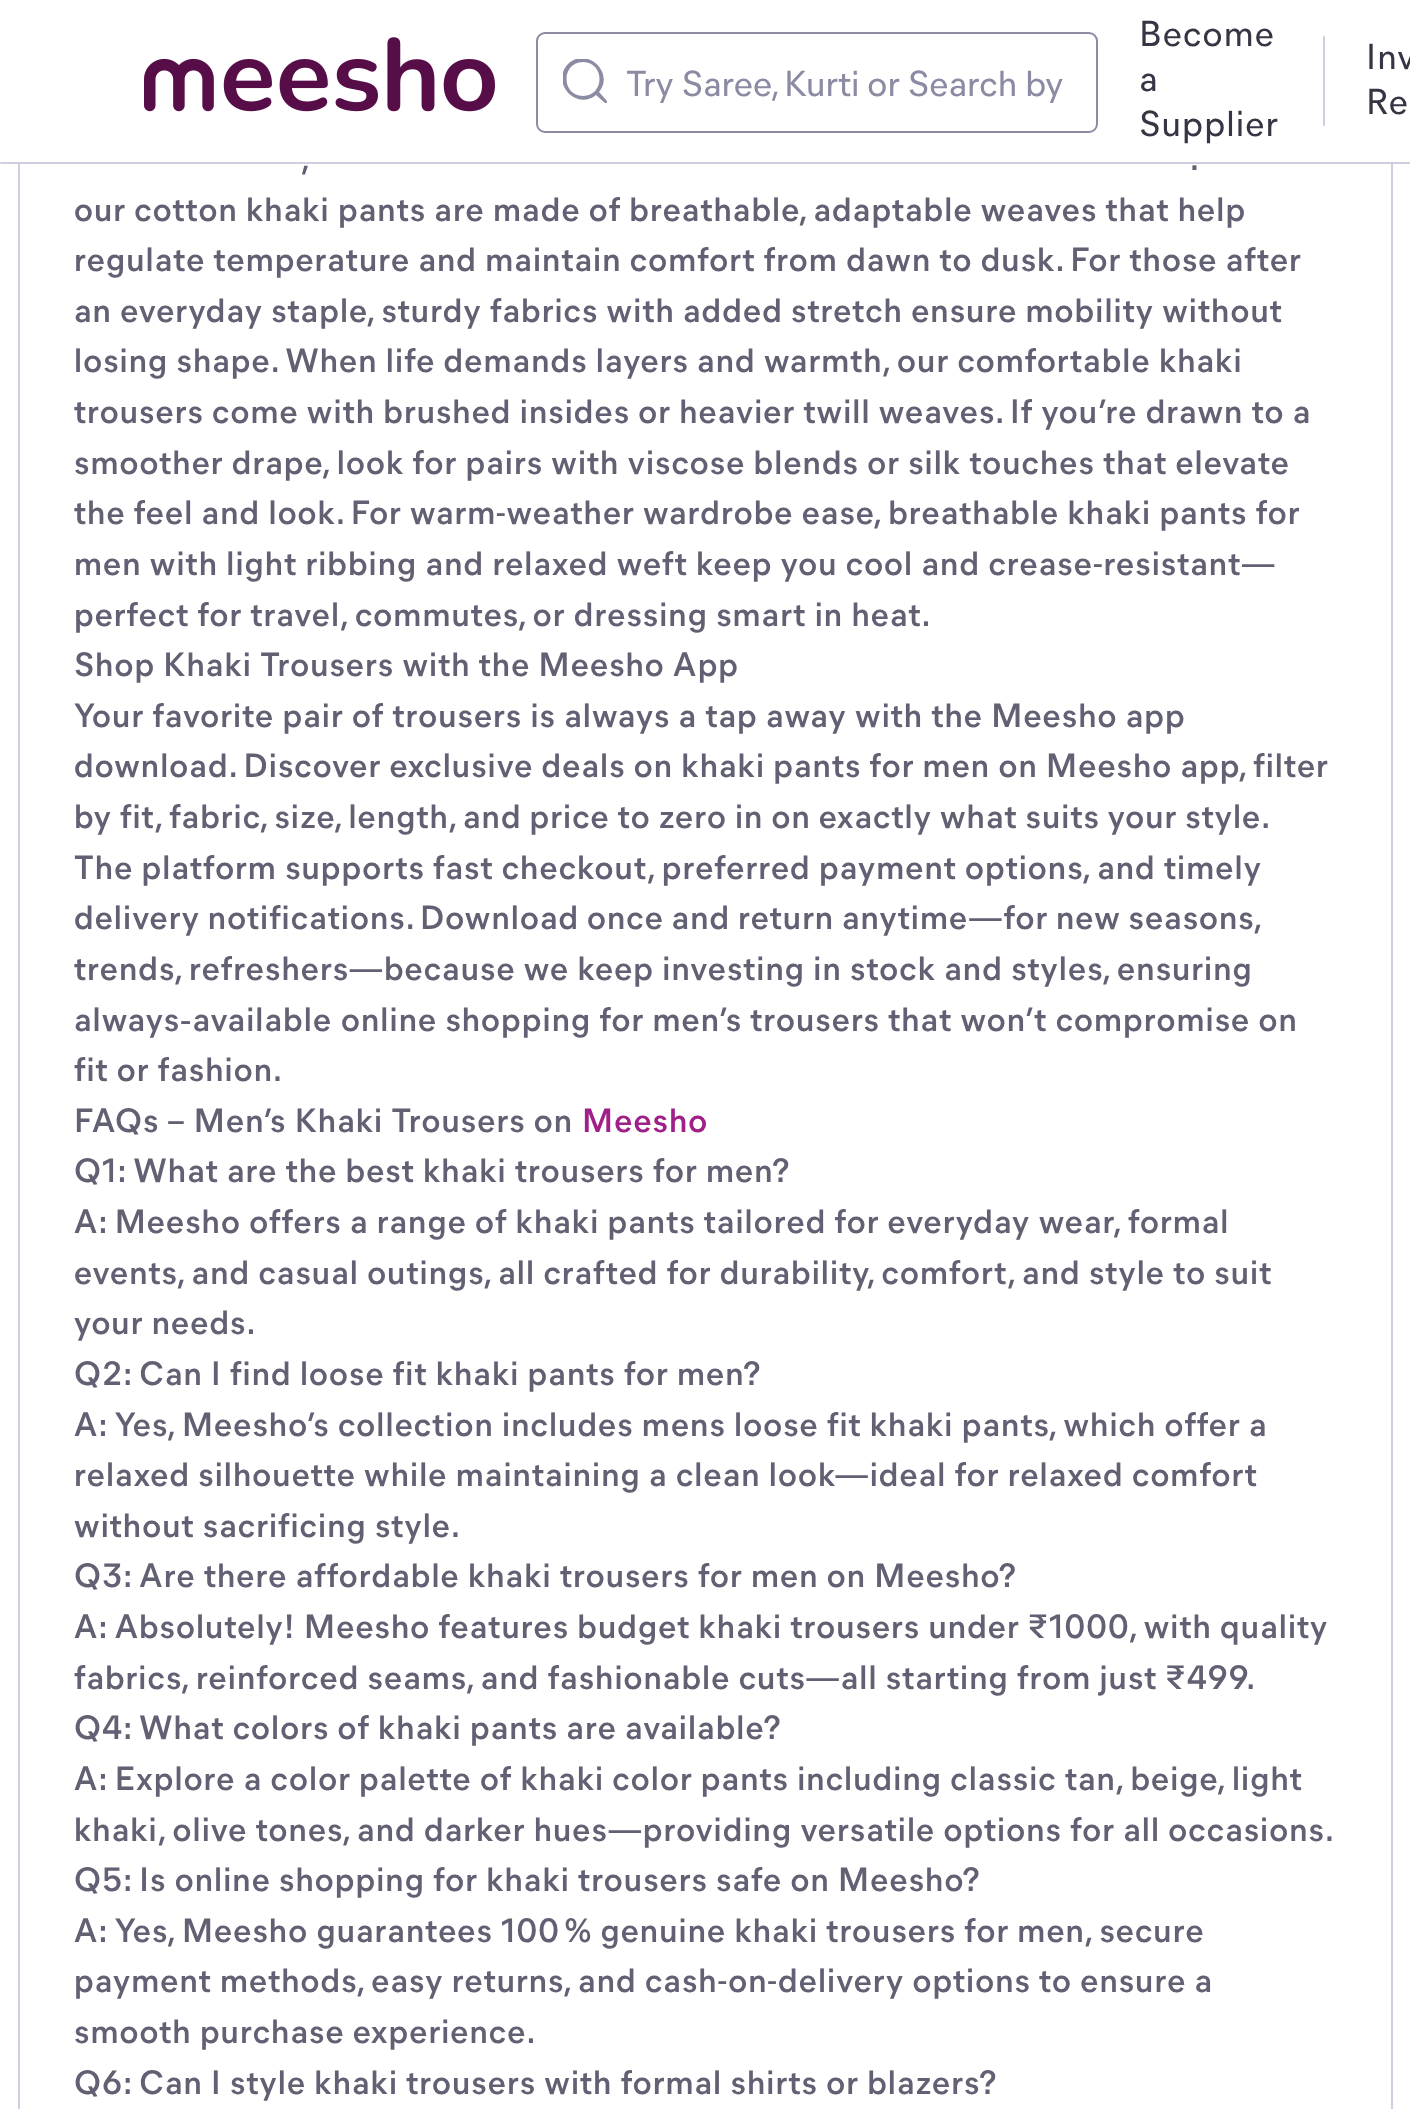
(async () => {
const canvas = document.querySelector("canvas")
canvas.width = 1410
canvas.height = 2109
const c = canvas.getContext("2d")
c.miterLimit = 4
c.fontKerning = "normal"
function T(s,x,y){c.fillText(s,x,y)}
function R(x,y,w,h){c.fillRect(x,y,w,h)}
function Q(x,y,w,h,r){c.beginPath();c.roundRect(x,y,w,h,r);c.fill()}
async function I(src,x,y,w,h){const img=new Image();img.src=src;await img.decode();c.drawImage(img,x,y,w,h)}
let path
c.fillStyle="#fff"
R(0,0,1410,2109)
c.strokeStyle="#cecede"
c.lineWidth=2
c.strokeRect(19,-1,1373,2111)
R(18,0,1375,164)
await I("1.png",144,37,351,75)
c.beginPath()
c.roundRect(537,33,560,99,8)
c.strokeStyle="#8b8ba3"
c.stroke()
c.save()
c.beginPath()
c.rect(563,59,44,44)
c.clip()
c.fillStyle="#8b8ba3"
path = new Path2D("M607 101l-8-9c16-19-12-46-31-28c-18 19 9 47 28 31l9 8c1 1 3-1 2-2zm-24-5c-22 0-22-34 0-34c22 0 22 34 0 34z")
c.fill(path)
c.restore()
c.letterSpacing="0.1px"
c.font="500 36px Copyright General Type"
c.fillStyle="#8b8ba3"
T("Try Saree, Kurti or Search by",626,96)
c.letterSpacing="1.12px"
c.fillStyle="#353543"
T("Become",1139,46)
T("a",1139,91)
T("Supplier",1139,136)
c.fillStyle="#cecede"
Q(1323,36,2,90,1)
c.fillStyle="#353543"
T("Inv",1366,69)
T("Re",1366,114)
c.fillStyle="#cecede"
Q(0,162,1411,2,1)
c.font="600 33.75px Copyright General Type"
c.fillStyle="#616173"
T(",",301,170)
T(".",1190,170)
T("our cotton khaki pants are made of breathable, adaptable weaves that help",74,221)
T("regulate temperature and maintain comfort from dawn to dusk. For those after",74,271)
T("an everyday staple, sturdy fabrics with added stretch ensure mobility without",74,322)
T("losing shape. When life demands layers and warmth, our comfortable khaki",74,372)
T("trousers come with brushed insides or heavier twill weaves. If you’re drawn to a",74,423)
T("smoother drape, look for pairs with viscose blends or silk touches that elevate",74,474)
T("the feel and look. For warm-weather wardrobe ease, breathable khaki pants for",74,524)
T("men with light ribbing and relaxed weft keep you cool and crease-resistant—",74,575)
T("perfect for travel, commutes, or dressing smart in heat.",74,626)
T("Shop Khaki Trousers with the Meesho App",74,676)
T("Your favorite pair of trousers is always a tap away with the Meesho app",74,727)
T("download. Discover exclusive deals on khaki pants for men on Meesho app, filter",74,777)
c.wordSpacing="-0.25px"
T("by fit, fabric, size, length, and price to zero in on exactly what suits your style.",74,828)
c.wordSpacing="0px"
T("The platform supports fast checkout, preferred payment options, and timely",74,879)
c.wordSpacing="-0.5px"
T("delivery notifications. Download once and return anytime—for new seasons,",74,929)
c.wordSpacing="0px"
T("trends, refreshers—because we keep investing in stock and styles, ensuring",74,980)
T("always‑available",74,1031)
T("online shopping for men’s trousers that won’t compromise on",341,1031)
T("fit or fashion.",74,1081)
T("FAQs – Men’s Khaki Trousers on",74,1132)
c.fillStyle="#9f2089"
T("Meesho",582,1132)
c.fillStyle="#616173"
T("Q1: What are the best khaki trousers for men?",74,1182)
T("A: Meesho offers a range of khaki pants tailored for everyday wear, formal",74,1233)
T("events, and casual outings, all crafted for durability, comfort, and style to suit",74,1284)
T("your needs.",74,1334)
T("Q2: Can I find loose fit khaki pants for men?",74,1385)
T("A: Yes, Meesho’s collection includes mens loose fit khaki pants, which offer a",74,1436)
T("relaxed silhouette while maintaining a clean look—ideal for relaxed comfort",74,1486)
T("without sacrificing style.",74,1537)
T("Q3: Are there affordable khaki trousers for men on Meesho?",74,1587)
T("A: Absolutely! Meesho features budget khaki trousers under ₹1000, with quality",74,1638)
T("fabrics, reinforced seams, and fashionable cuts—all starting from just ₹499.",74,1689)
T("Q4: What colors of khaki pants are available?",74,1739)
T("A: Explore a color palette of khaki color pants including classic tan, beige, light",74,1790)
T("khaki, olive tones, and darker hues—providing versatile options for all occasions.",74,1841)
T("Q5: Is online shopping for khaki trousers safe on Meesho?",74,1891)
T("A: Yes, Meesho guarantees 100 % genuine khaki trousers for men, secure",74,1942)
T("payment methods, easy returns, and cash-on-delivery options to ensure a",74,1992)
T("smooth purchase experience.",74,2043)
T("Q6: Can I style khaki trousers with formal shirts or blazers?",74,2094)
})()
